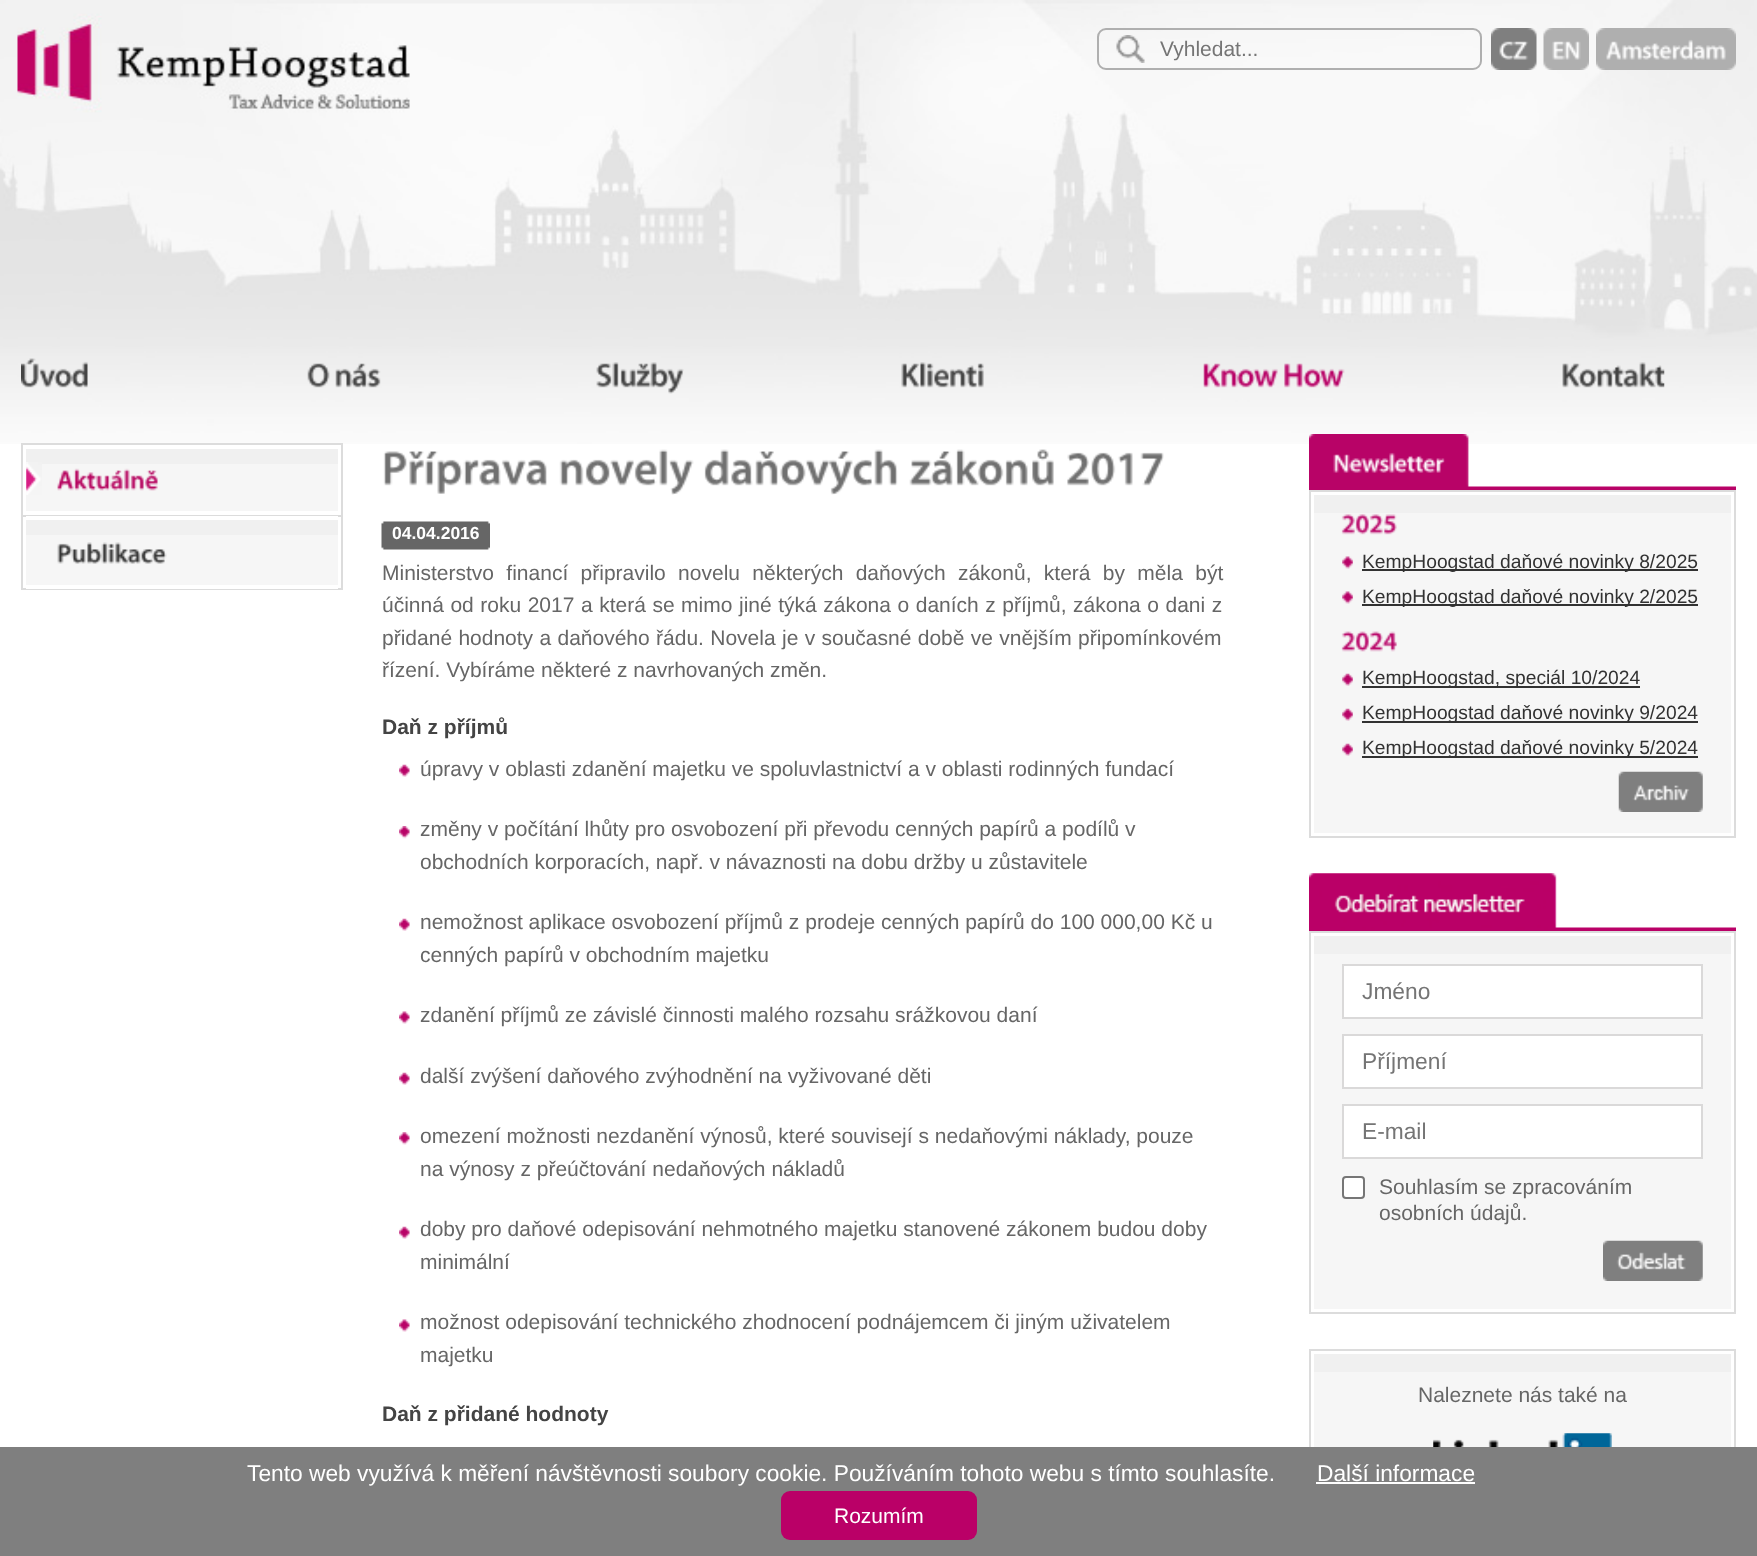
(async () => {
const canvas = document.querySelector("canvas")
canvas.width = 1757
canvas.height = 1556
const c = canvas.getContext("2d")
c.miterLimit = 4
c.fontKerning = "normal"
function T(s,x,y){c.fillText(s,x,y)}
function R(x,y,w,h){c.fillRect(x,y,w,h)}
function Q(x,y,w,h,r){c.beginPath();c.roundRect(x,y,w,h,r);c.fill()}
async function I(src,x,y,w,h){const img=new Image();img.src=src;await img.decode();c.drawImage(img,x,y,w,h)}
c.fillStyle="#fff"
R(0,0,1757,1556)
await I("1.png",0,0,1757,444)
await I("2.png",1116,35,29,28)
c.beginPath()
c.roundRect(1098,29,383,40,8)
c.strokeStyle="#afafaf"
c.lineWidth=2
c.stroke()
c.font="21px Liberation Sans"
c.fillStyle="#757575"
T("Vyhledat...",1160,56)
await I("3.png",1491,28,46,42)
await I("4.png",1543,28,46,42)
await I("5.png",1596,28,140,42)
await I("6.png",21,358,67,30)
await I("7.png",307,363,74,25)
await I("8.png",596,362,88,32)
await I("9.png",901,362,83,26)
await I("10.png",1203,363,142,25)
await I("11.png",1562,362,103,26)
c.fillStyle="#dcdcdc"
R(341,443,2,147)
R(21,588,322,2)
R(21,443,2,147)
R(23,443,318,2)
c.fillStyle="#f6f6f6"
R(26,464,312,47)
c.fillStyle="#f0f0f0"
R(26,449,312,15)
await I("12.png",26,462,16,33)
await I("13.png",57,468,101,23)
c.fillStyle="#dcdcdc"
R(23,515,318,2)
c.fillStyle="#f6f6f6"
R(26,535,312,50)
c.fillStyle="#f0f0f0"
R(26,520,312,15)
c.fillStyle="#fff"
R(26,516,312,1)
R(26,588,312,1)
await I("14.png",57,542,110,22)
await I("15.png",383,451,164,43)
await I("16.png",559,449,135,46)
await I("17.png",704,449,194,46)
await I("18.png",909,449,145,37)
await I("19.png",1067,452,97,34)
await I("20.png",381,521,109,29)
c.font="bold 17.5px Liberation Sans"
T("04.04.2016",392,539)
c.wordSpacing="6.5px"
c.font="21px Liberation Sans"
c.fillStyle="#666"
T("Ministerstvo financí připravilo novelu některých daňových zákonů, která by měla být",382,580)
c.wordSpacing="0.7px"
T("účinná od roku 2017 a která se mimo jiné týká zákona o daních z příjmů, zákona o dani z",382,612)
c.wordSpacing="0.5px"
T("přidané hodnoty a daňového řádu. Novela je v současné době ve vnějším připomínkovém",382,645)
c.wordSpacing="0px"
T("řízení. Vybíráme některé z navrhovaných změn.",382,677)
c.font="bold 21px Liberation Sans"
c.fillStyle="#444"
T("Daň z příjmů",382,734)
await I("21.png",399,764,11,13)
c.font="21px Liberation Sans"
c.fillStyle="#666"
T("úpravy v oblasti zdanění majetku ve spoluvlastnictví a v oblasti rodinných fundací",420,776)
await I("22.png",399,826,11,13)
T("změny v počítání lhůty pro osvobození při převodu cenných papírů a podílů v",420,836)
T("obchodních korporacích, např. v návaznosti na dobu držby u zůstavitele",420,869)
await I("21.png",399,918,11,13)
T("nemožnost aplikace osvobození příjmů z prodeje cenných papírů do 100 000,00 Kč u",420,929)
T("cenných papírů v obchodním majetku",420,962)
await I("23.png",399,1011,11,13)
T("zdanění příjmů ze závislé činnosti malého rozsahu srážkovou daní",420,1022)
await I("21.png",399,1072,11,13)
T("další zvýšení daňového zvýhodnění na vyživované děti",420,1083)
await I("24.png",399,1132,11,13)
T("omezení možnosti nezdanění výnosů, které souvisejí s nedaňovými náklady, pouze",420,1143)
T("na výnosy z přeúčtování nedaňových nákladů",420,1176)
await I("21.png",399,1226,11,13)
T("doby pro daňové odepisování nehmotného majetku stanovené zákonem budou doby",420,1236)
T("minimální",420,1269)
await I("23.png",399,1319,11,13)
T("možnost odepisování technického zhodnocení podnájemcem či jiným uživatelem",420,1329)
T("majetku",420,1362)
c.font="bold 21px Liberation Sans"
c.fillStyle="#444"
T("Daň z přidané hodnoty",382,1421)
await I("25.png",1309,434,427,56)
c.strokeStyle="#dcdcdc"
c.strokeRect(1310,491,425,346)
c.fillStyle="#f6f6f6"
R(1314,513,417,320)
c.fillStyle="#f0f0f0"
R(1314,495,417,18)
await I("26.png",1341,514,56,21)
await I("27.png",1342,556,11,13)
c.fillStyle="#323232"
R(1362,569,336,2)
c.font="19.25px Liberation Sans"
T("KempHoogstad daňové novinky 8/2025",1362,568)
await I("27.png",1342,591,11,13)
R(1362,604,336,2)
T("KempHoogstad daňové novinky 2/2025",1362,603)
await I("28.png",1341,631,56,21)
await I("29.png",1342,673,11,13)
R(1362,686,278,2)
T("KempHoogstad, speciál 10/2024",1362,684)
await I("29.png",1342,708,11,13)
R(1362,721,336,2)
T("KempHoogstad daňové novinky 9/2024",1362,719)
await I("29.png",1342,743,11,13)
R(1362,756,336,2)
T("KempHoogstad daňové novinky 5/2024",1362,754)
await I("30.png",1618,771,85,41)
await I("31.png",1309,873,427,58)
c.strokeRect(1310,932,425,381)
c.fillStyle="#f6f6f6"
R(1314,954,417,355)
c.fillStyle="#f0f0f0"
R(1314,936,417,18)
c.fillStyle="#fff"
c.beginPath()
c.rect(1343,965,359,53)
c.fill()
c.strokeStyle="#dad9d9"
c.stroke()
c.font="22.75px Liberation Sans"
c.fillStyle="#757575"
T("Jméno",1362,999)
c.fillStyle="#fff"
c.beginPath()
c.rect(1343,1035,359,53)
c.fill()
c.stroke()
c.fillStyle="#757575"
T("Příjmení",1362,1069)
c.fillStyle="#fff"
c.beginPath()
c.rect(1343,1105,359,53)
c.fill()
c.stroke()
c.fillStyle="#757575"
T("E-mail",1362,1139)
c.fillStyle="#fff"
c.beginPath()
c.roundRect(1343,1177,21,21,3)
c.fill()
c.strokeStyle="#767676"
c.stroke()
c.font="21px Liberation Sans"
c.fillStyle="#666"
T("Souhlasím se zpracováním",1379,1194)
T("osobních údajů.",1379,1220)
await I("32.png",1603,1240,100,41)
c.strokeStyle="#dcdcdc"
c.strokeRect(1310,1350,425,168)
c.fillStyle="#f6f6f6"
R(1314,1372,417,75)
c.fillStyle="#f0f0f0"
R(1314,1354,417,18)
c.fillStyle="#666"
T("Naleznete nás také na",1418,1402)
await I("33.png",1433,1433,179,14)
c.fillStyle="#7f7f7f"
R(0,1447,1757,109)
c.font="22.75px Liberation Sans"
c.fillStyle="#fff"
T("Tento web využívá k měření návštěvnosti soubory cookie. Používáním tohoto webu s tímto souhlasíte.",247,1481)
T("Další informace",1317,1481)
R(1316,1482,159,2)
c.fillStyle="#ba0067"
Q(781,1491,196,49,9)
c.font="21px Liberation Sans"
c.fillStyle="#fff"
T("Rozumím",834,1523)
})()
